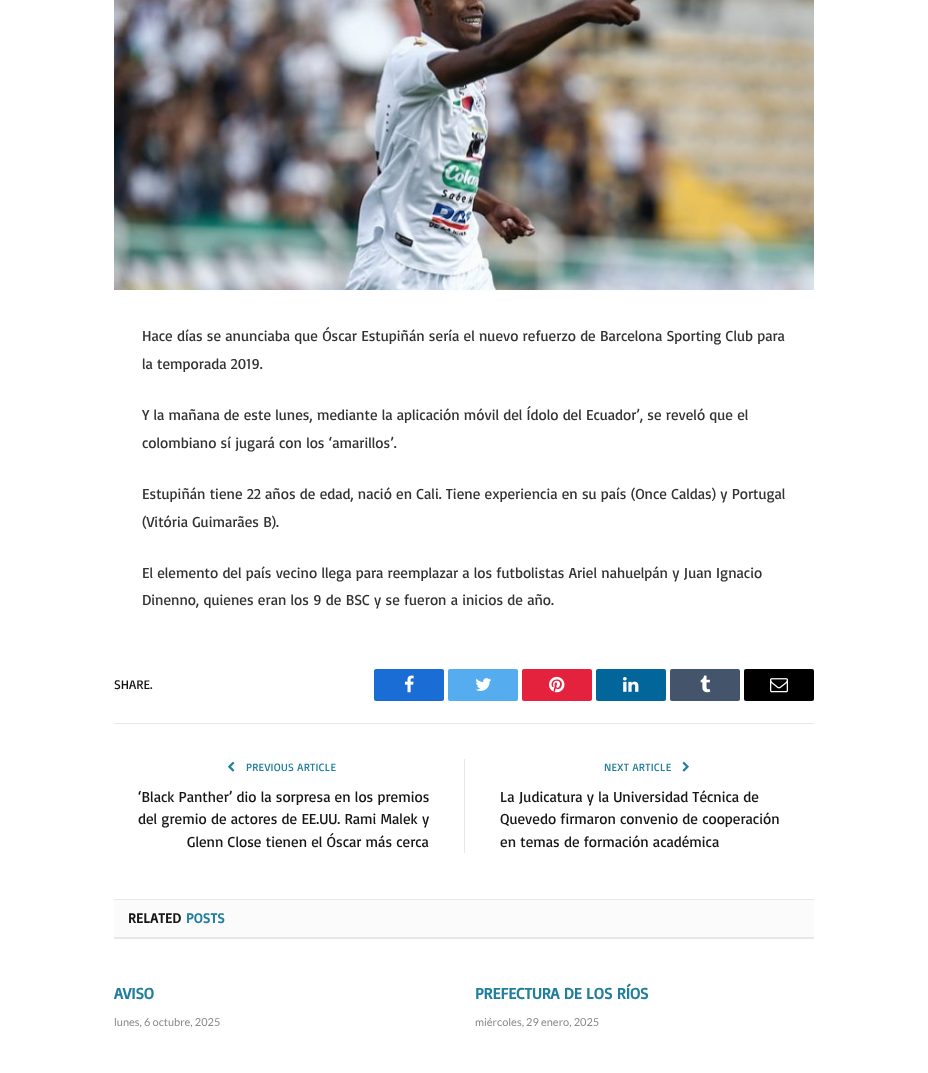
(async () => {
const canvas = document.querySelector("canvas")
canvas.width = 928
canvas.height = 1073
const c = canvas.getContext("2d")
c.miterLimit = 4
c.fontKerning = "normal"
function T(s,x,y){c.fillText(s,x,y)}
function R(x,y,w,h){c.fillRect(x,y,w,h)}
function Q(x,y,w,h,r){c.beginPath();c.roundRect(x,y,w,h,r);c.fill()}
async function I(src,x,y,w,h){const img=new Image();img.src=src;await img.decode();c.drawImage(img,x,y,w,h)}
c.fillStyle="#fff"
R(0,0,928,1073)
await I("1.png",114,0,700,290)
c.font="15px Basic"
c.fillStyle="#333"
T("Hace días se anunciaba que Óscar Estupiñán sería el nuevo refuerzo de Barcelona Sporting Club para",142,341)
T("la temporada 2019.",142,369)
T("Y la mañana de este lunes, mediante la aplicación móvil del Ídolo del Ecuador’, se reveló que el",142,420)
T("colombiano sí jugará con los ‘amarillos’.",142,448)
T("Estupiñán tiene 22 años de edad, nació en Cali. Tiene experiencia en su país (Once Caldas) y Portugal",142,499)
T("(Vitória Guimarães B).",142,527)
T("El elemento del país vecino llega para reemplazar a los futbolistas Ariel nahuelpán y Juan Ignacio",142,578)
T("Dinenno, quienes eran los 9 de BSC y se fueron a inicios de año.",142,605)
c.font="13px Basic"
c.fillStyle="#161616"
T("SHARE.",114,689)
c.fillStyle="#1a6dd4"
Q(374,669,70,32,2)
await I("2.png",404,675,10,18)
c.fillStyle="#55acef"
Q(448,669,70,32,2)
await I("3.png",475,678,17,13)
c.fillStyle="#e4223e"
Q(522,669,70,32,2)
await I("4.png",549,676,16,17)
c.fillStyle="#02669a"
Q(596,669,70,32,2)
await I("5.png",623,677,16,15)
c.fillStyle="#44546b"
Q(670,669,70,32,2)
await I("6.png",700,675,11,18)
c.fillStyle="#000"
Q(744,669,70,32,2)
await I("7.png",770,678,18,15)
c.fillStyle="#e8e8e8"
R(114,723,700,1)
await I("8.png",228,761,7,11)
c.letterSpacing="0.3px"
c.font="11px Basic"
c.fillStyle="#217e9d"
T("PREVIOUS ARTICLE",246,771)
c.letterSpacing="0px"
c.font="15px Basic"
c.fillStyle="#161616"
T("‘Black Panther’ dio la sorpresa en los premios",138,802)
T("del gremio de actores de EE.UU. Rami Malek y",138,824)
T("Glenn Close tienen el Óscar más cerca",187,847)
c.fillStyle="#e8e8e8"
R(464,759,1,94)
c.letterSpacing="0.3px"
c.font="11px Basic"
c.fillStyle="#217e9d"
T("NEXT ARTICLE",604,771)
await I("9.png",682,761,7,11)
c.letterSpacing="0px"
c.font="15px Basic"
c.fillStyle="#161616"
T("La Judicatura y la Universidad Técnica de",500,802)
T("Quevedo firmaron convenio de cooperación",500,824)
T("en temas de formación académica",500,847)
c.fillStyle="#fbfbfb"
R(114,900,700,37)
c.fillStyle="#e8e8e8"
R(114,899,700,1)
R(114,937,700,2)
c.letterSpacing="0.25px"
c.font="bold 14px Basic"
c.fillStyle="#161616"
T("RELATED",128,923)
c.fillStyle="#217e9d"
T("POSTS",186,923)
c.letterSpacing="0px"
c.font="bold 16px Basic"
T("AVISO",114,999)
c.font="11px Lato"
c.fillStyle="#8a8a8a"
T("lunes, 6 octubre, 2025",114,1026)
c.font="bold 16px Basic"
c.fillStyle="#217e9d"
T("PREFECTURA DE LOS RÍOS",475,999)
c.font="11px Lato"
c.fillStyle="#8a8a8a"
T("miércoles, 29 enero, 2025",475,1026)
})()
